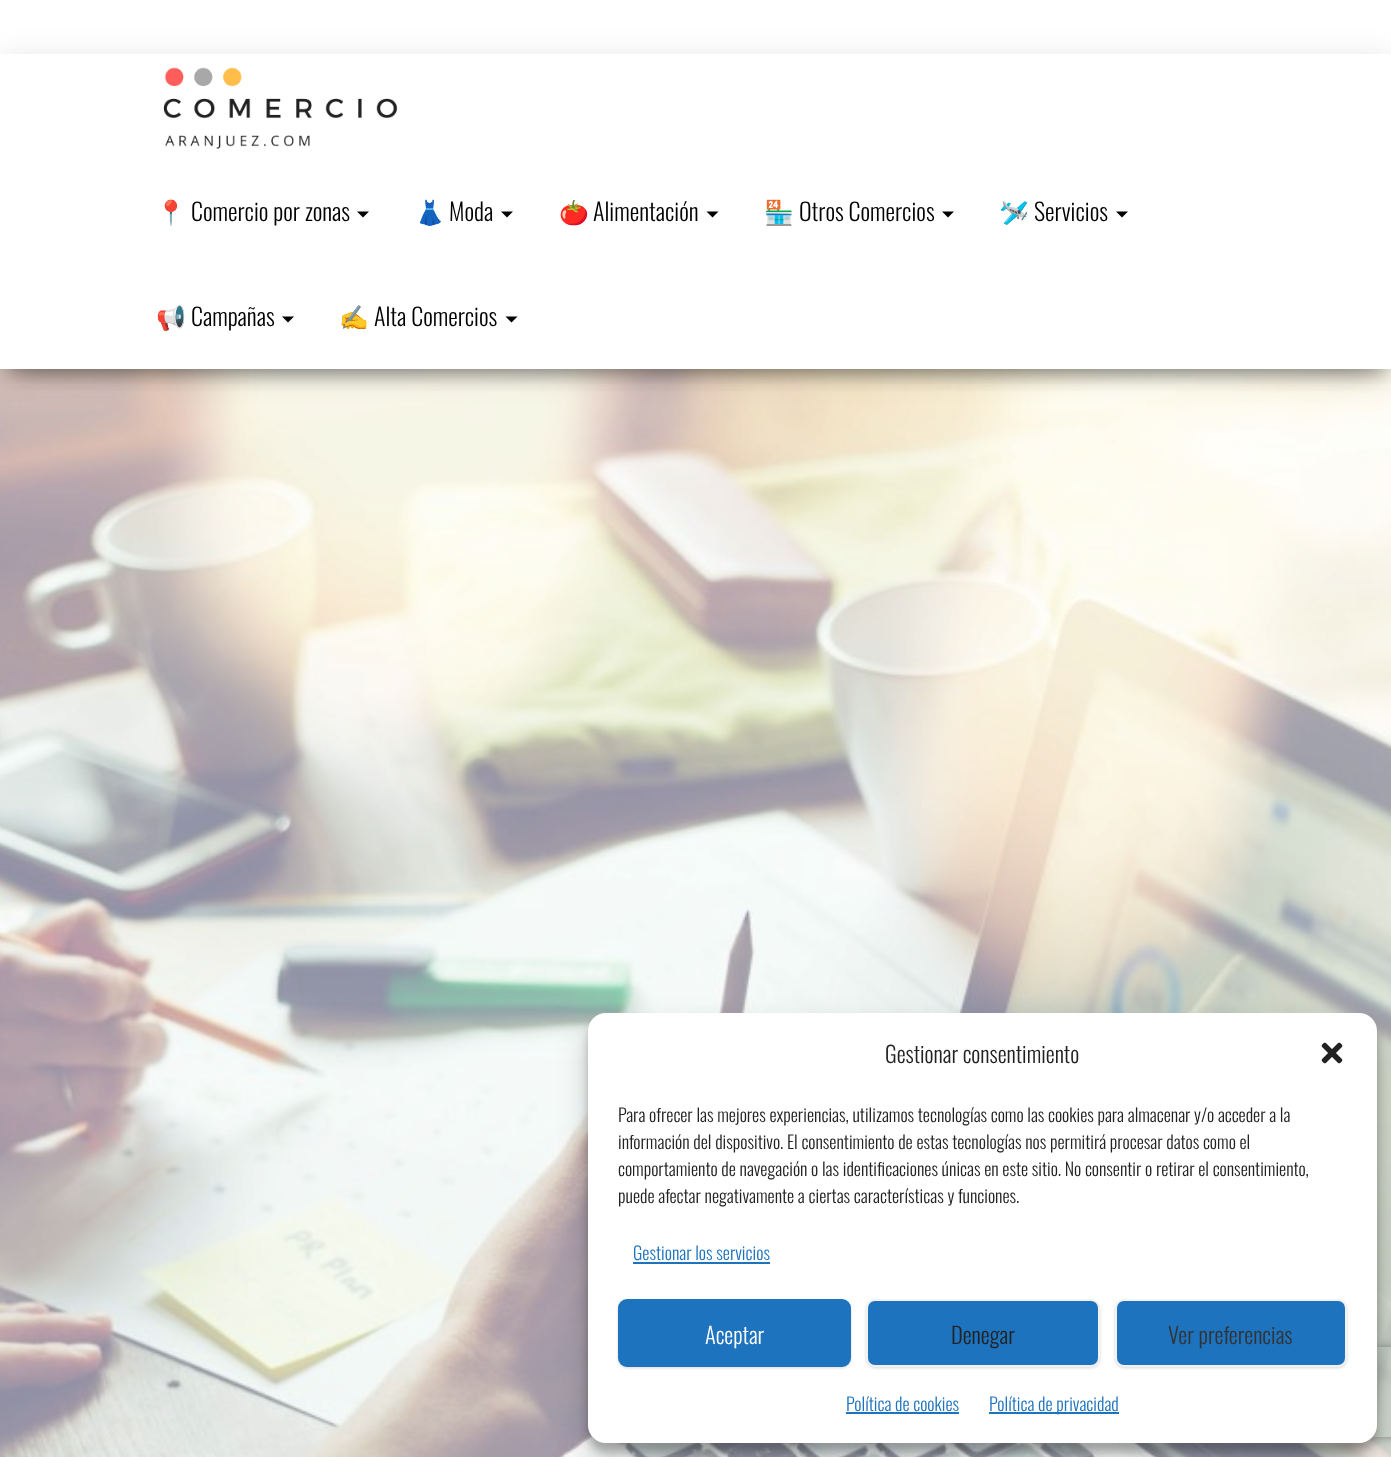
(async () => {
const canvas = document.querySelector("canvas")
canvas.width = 1391
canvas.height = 1457
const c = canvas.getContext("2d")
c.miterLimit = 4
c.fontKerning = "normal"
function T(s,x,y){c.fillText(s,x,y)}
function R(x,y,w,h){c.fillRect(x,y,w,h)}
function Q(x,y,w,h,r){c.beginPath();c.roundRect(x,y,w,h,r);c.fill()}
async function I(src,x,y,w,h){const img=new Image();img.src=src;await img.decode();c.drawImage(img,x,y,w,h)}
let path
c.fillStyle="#fff"
R(0,0,1391,1457)
await I("2.png",0,369,1391,1088)
c.save()
c.beginPath()
c.rect(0,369,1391,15)
c.clip()
c.fillStyle="#00000033"
c.filter="blur(7.5px)"
c.beginPath()
c.rect(8,74,1377,300)
c.fill()
c.filter="none"
c.restore()
c.save()
path = new Path2D("M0 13h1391v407h-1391zm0 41h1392v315h-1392z")
c.clip(path,"evenodd")
c.fillStyle="#0000001f"
c.filter="blur(15px)"
c.beginPath()
c.rect(0,59,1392,315)
c.fill()
c.filter="none"
c.restore()
c.save()
c.beginPath()
c.rect(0,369,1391,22)
c.clip()
c.fillStyle="#0000006b"
c.filter="blur(15px)"
c.beginPath()
c.rect(18,87,1356,279)
c.fill()
c.filter="none"
c.restore()
await I("1.png",163,67,235,82)
c.font="24px Noto Color Emoji"
c.fillStyle="#000"
T("📍",156,221)
c.font="300 24px Oswald"
T("Comercio por zonas",191,221)
path = new Path2D("M357 211.5h12l-6 6z")
c.fill(path)
c.font="24px Noto Color Emoji"
T("👗",415,221)
c.font="300 24px Oswald"
T("Moda",449,221)
path = new Path2D("M501 211.5h12l-6 6z")
c.fill(path)
c.font="24px Noto Color Emoji"
T("🍅",559,221)
c.font="300 24px Oswald"
T("Alimentación",593,221)
path = new Path2D("M706.5 211.5h12l-6 6z")
c.fill(path)
c.font="24px Noto Color Emoji"
T("🏪",764,221)
c.font="300 24px Oswald"
T("Otros Comercios",799,221)
path = new Path2D("M942 211.5h12l-6 6z")
c.fill(path)
c.font="24px Noto Color Emoji"
T("🛩️",999,221)
c.font="300 24px Oswald"
T("Servicios",1034,221)
path = new Path2D("M1116 211.5h12l-6 6z")
c.fill(path)
c.font="24px Noto Color Emoji"
T("📢",156,326)
c.font="300 24px Oswald"
T("Campañas",191,326)
path = new Path2D("M282 316.5h12l-6 6z")
c.fill(path)
c.font="24px Noto Color Emoji"
T("✍️",339,326)
c.font="300 24px Oswald"
T("Alta Comercios",374,326)
path = new Path2D("M505.5 316.5h12l-6 6z")
c.fill(path)
c.fillStyle="#0000003b"
c.filter="blur(4.5px)"
c.beginPath()
c.roundRect(588,1022,789,430,18)
c.fill()
c.filter="none"
c.fillStyle="#00000030"
c.filter="blur(15px)"
c.beginPath()
c.roundRect(588,1028,789,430,18)
c.fill()
c.filter="none"
c.save()
path = new Path2D("M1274 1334h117v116h-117zm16 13h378c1.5 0 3 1.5 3 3v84c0 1.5-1.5 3-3 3h-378c-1.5 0-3-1.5-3-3v-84c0-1.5 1.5-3 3-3z")
c.clip(path,"evenodd")
c.fillStyle="#808080"
c.filter="blur(4px)"
c.beginPath()
c.roundRect(1287,1347,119,90,3)
c.fill()
c.filter="none"
c.restore()
c.fillStyle="#fff"
Q(588,1013,789,430,18)
c.font="300 22.5px Oswald"
c.fillStyle="#222"
T("Gestionar consentimiento",885,1063)
await I("3.png",1321,1042,22,22)
c.font="300 18px Oswald"
T("Para ofrecer las mejores experiencias, utilizamos tecnologías como las cookies para almacenar y/o acceder a la",618,1122)
T("información del dispositivo. El consentimiento de estas tecnologías nos permitirá procesar datos como el",618,1149)
T("comportamiento de navegación o las identificaciones únicas en este sitio. No consentir o retirar el consentimiento,",618,1176)
T("puede afectar negativamente a ciertas características y funciones.",618,1203)
c.fillStyle="#1e73be"
T("Gestionar los servicios",633,1260)
R(633,1262,137,2)
c.fillStyle="#00000026"
c.filter="blur(1.5px)"
c.beginPath()
c.roundRect(618,1301,233,67,9)
c.fill()
c.filter="none"
c.fillStyle="#1e73be"
c.beginPath()
c.roundRect(619,1300,231,66,8)
c.fill()
c.strokeStyle="#1e73be"
c.lineWidth=2
c.stroke()
c.font="300 22.5px Oswald"
c.fillStyle="#fff"
T("Aceptar",705,1344)
c.fillStyle="#00000026"
c.filter="blur(1.5px)"
c.beginPath()
c.roundRect(866,1301,234,67,9)
c.fill()
c.filter="none"
c.fillStyle="#1e73be"
c.beginPath()
c.roundRect(867,1300,232,66,8)
c.fill()
c.strokeStyle="#f2f2f2"
c.stroke()
c.fillStyle="#222"
T("Denegar",951,1344)
c.fillStyle="#00000026"
c.filter="blur(1.5px)"
c.beginPath()
c.roundRect(1115,1301,232,67,9)
c.fill()
c.filter="none"
c.fillStyle="#1e73be"
c.beginPath()
c.roundRect(1116,1300,230,66,8)
c.fill()
c.stroke()
c.fillStyle="#333"
T("Ver preferencias",1168,1344)
c.font="300 18px Oswald"
c.fillStyle="#1e73be"
T("Política de cookies",846,1411)
R(846,1412,113,2)
R(989,1412,130,2)
T("Política de privacidad",989,1411)
})()
